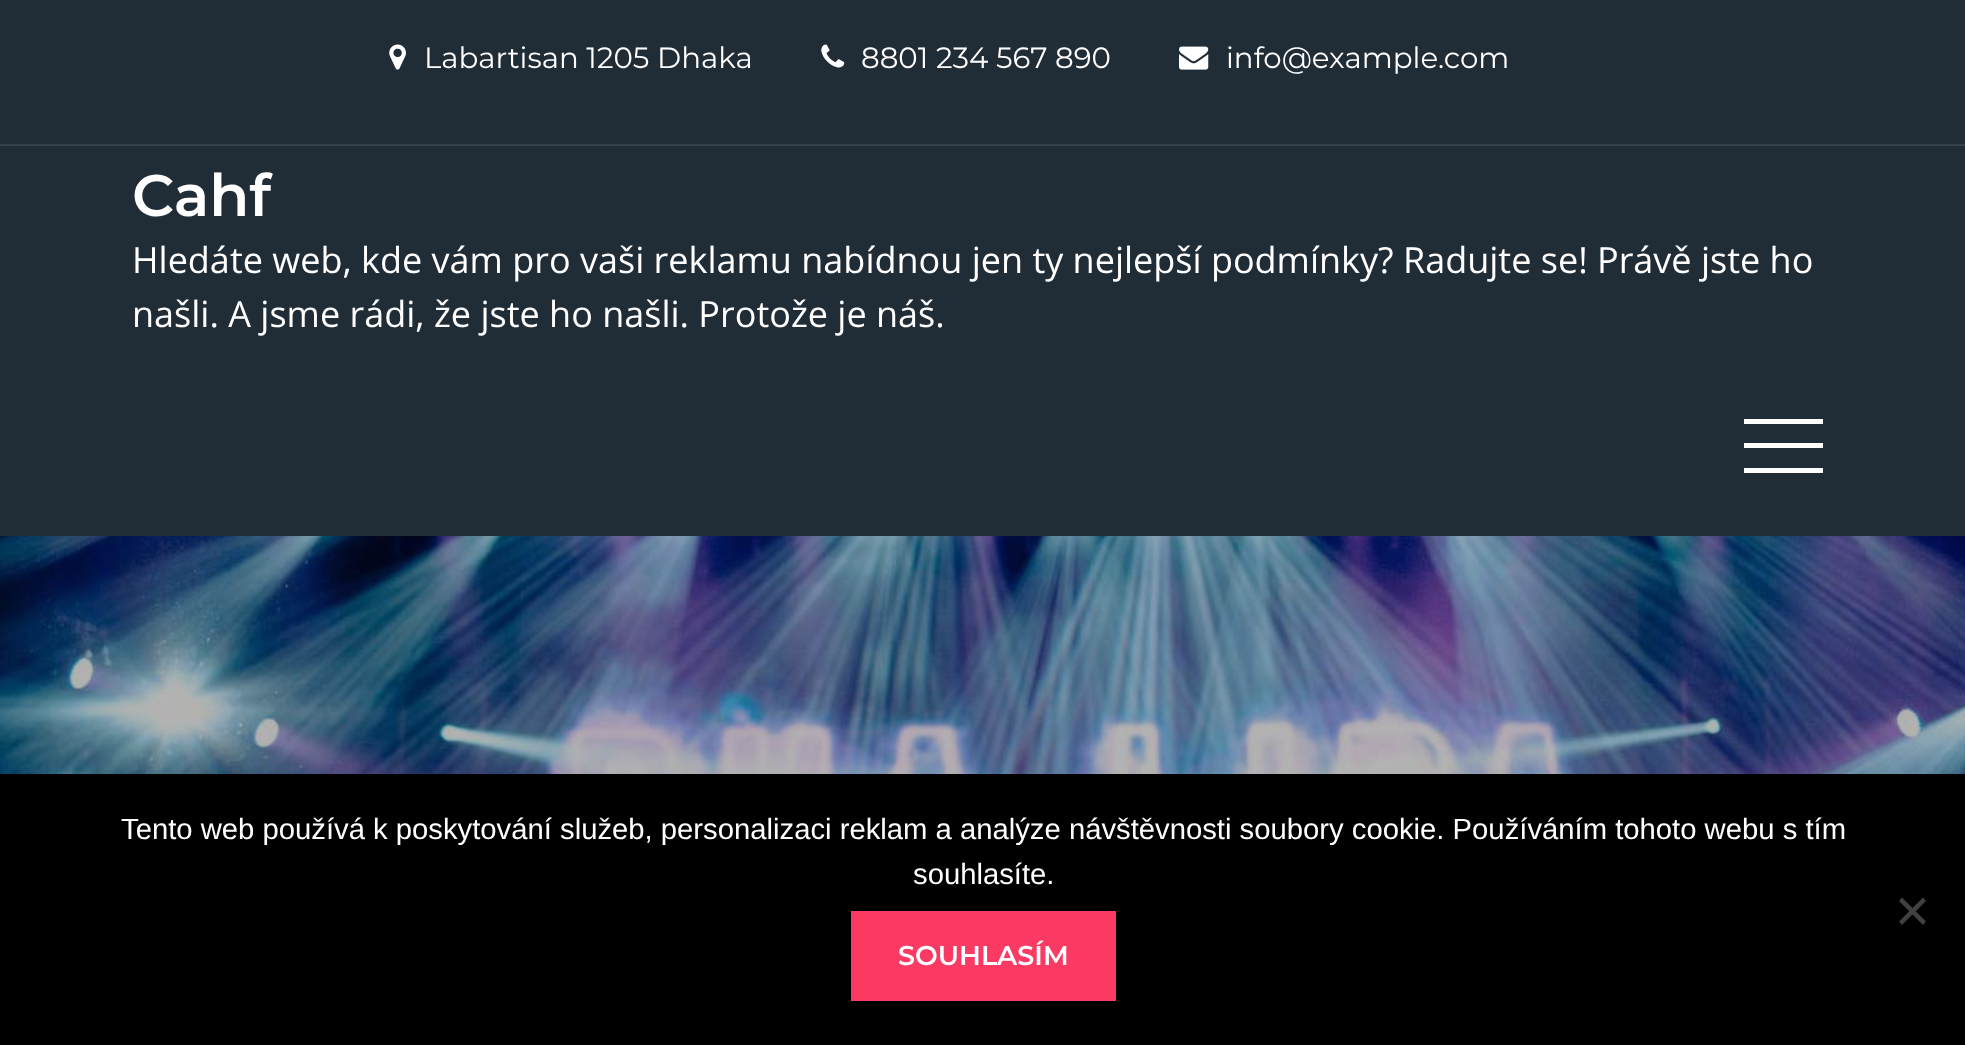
(async () => {
const canvas = document.querySelector("canvas")
canvas.width = 1965
canvas.height = 1045
const c = canvas.getContext("2d")
c.miterLimit = 4
c.fontKerning = "normal"
function T(s,x,y){c.fillText(s,x,y)}
function R(x,y,w,h){c.fillRect(x,y,w,h)}
async function I(src,x,y,w,h){const img=new Image();img.src=src;await img.decode();c.drawImage(img,x,y,w,h)}
let path
c.fillStyle="#202c36"
R(0,0,1965,1045)
c.fillStyle="#36414a"
R(0,144,1965,2)
await I("1.png",389,44,17,26)
c.font="29.25px Montserrat"
c.fillStyle="#fff"
T("Labartisan 1205 Dhaka",424,68)
await I("2.png",821,44,24,24)
T("8801 234 567 890",861,68)
await I("3.png",1179,46,30,24)
T("info@example.com",1226,68)
c.font="600 58.5px Montserrat"
T("Cahf",132,216)
c.font="36px Open Sans"
T("Hledáte web, kde vám pro vaši reklamu nabídnou jen ty nejlepší podmínky? Radujte se! Právě jste ho",132,273)
T("našli. A jsme rádi, že jste ho našli. Protože je náš.",132,327)
R(1744,419,79,5)
R(1744,443,79,5)
R(1744,468,79,5)
await I("4.png",0,536,1965,238)
c.fillStyle="#000"
R(0,774,1965,271)
c.font="29.25px Liberation Sans"
c.fillStyle="#fff"
T("Tento web používá k poskytování služeb, personalizaci reklam a analýze návštěvnosti soubory cookie. Používáním tohoto webu s tím",121,839)
T("souhlasíte.",913,884)
c.fillStyle="#404040"
path = new Path2D("M1923 897.5l3 3.5l-24 24l-3-3.5z")
c.fill(path)
path = new Path2D("M1899 901l3-3.5l24 24l-3 3.5z")
c.fill(path)
c.fillStyle="#fb3a64"
R(851,911,265,90)
c.font="600 27px Montserrat"
c.fillStyle="#fff"
T("SOUHLASÍM",898,965)
})()
